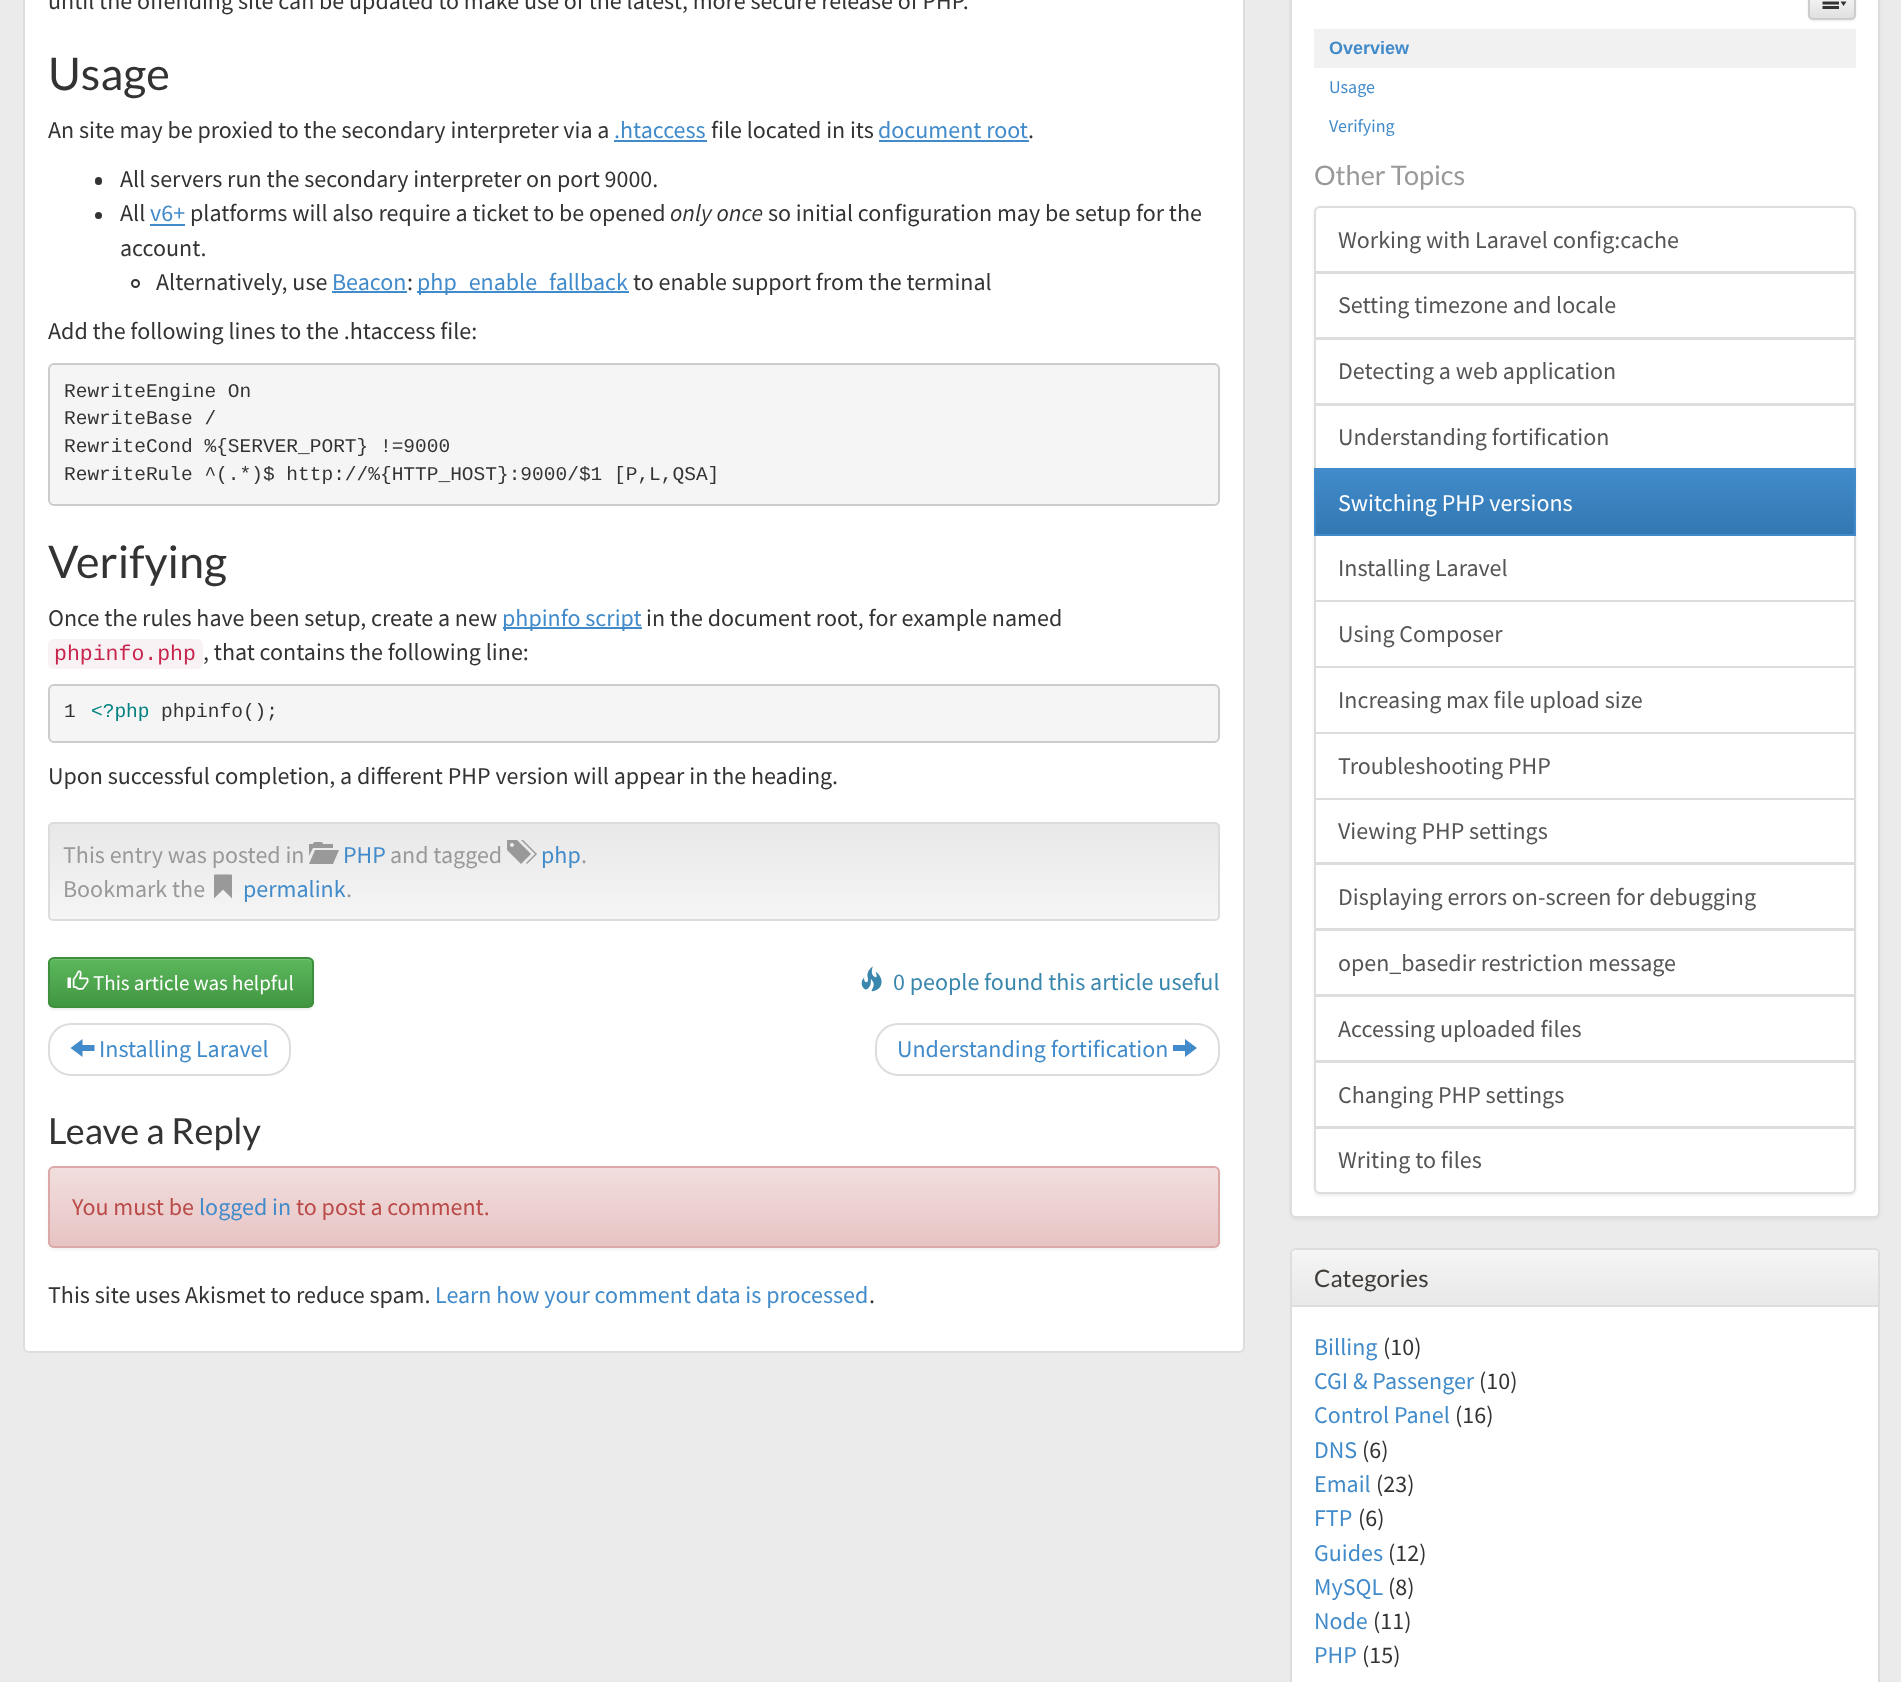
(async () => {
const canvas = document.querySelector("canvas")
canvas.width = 1901
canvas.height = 1682
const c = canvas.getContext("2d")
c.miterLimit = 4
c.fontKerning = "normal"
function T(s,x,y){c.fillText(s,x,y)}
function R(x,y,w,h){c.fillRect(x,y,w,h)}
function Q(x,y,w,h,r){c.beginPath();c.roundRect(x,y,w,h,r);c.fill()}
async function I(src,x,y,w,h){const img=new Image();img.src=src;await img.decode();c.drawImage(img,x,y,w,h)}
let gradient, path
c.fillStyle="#ebebeb"
R(0,0,1901,1682)
c.fillStyle="#fff"
c.beginPath()
c.roundRect(24,-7,1220,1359,5)
c.fill()
c.strokeStyle="#ddd"
c.lineWidth=2
c.stroke()
c.font="24px Source Sans Pro"
c.fillStyle="#333"
T("until the offending site can be updated to make use of the latest, more secure release of PHP.",48,9)
c.font="45px Lato"
T("Usage",48,90)
c.font="24px Source Sans Pro"
T("An site may be proxied to the secondary interpreter via a",48,138)
c.fillStyle="#428bca"
T(".htaccess",614,138)
R(614,140,93,2)
c.fillStyle="#333"
T("file located in its",711,138)
c.fillStyle="#428bca"
T("document root",878,138)
R(879,140,150,2)
c.fillStyle="#333"
T(".",1028,138)
Q(95,177,7,8,3.5)
T("All servers run the secondary interpreter on port 9000.",120,187)
c.beginPath()
c.arc(98.5,215.5,3.5,0,7)
c.fill()
T("All",120,221)
c.fillStyle="#428bca"
T("v6+",150,221)
R(150,224,35,2)
c.fillStyle="#333"
T("platforms will also require a ticket to be opened",190,221)
c.font="italic 24px Source Sans Pro"
T("only once",670,221)
c.font="24px Source Sans Pro"
T("so initial configuration may be setup for the",768,221)
T("account.",120,256)
c.beginPath()
c.arc(135.5,283.5,3.5,0,7)
c.strokeStyle="#333"
c.stroke()
T("Alternatively, use",156,290)
c.fillStyle="#428bca"
T("Beacon",332,290)
R(332,291,75,2)
c.fillStyle="#333"
T(":",407,290)
c.fillStyle="#428bca"
R(417,291,212,2)
T("php_enable_fallback",417,290)
c.fillStyle="#333"
T("to enable support from the terminal",633,290)
T("Add the following lines to the .htaccess file:",48,339)
c.fillStyle="#f5f5f5"
c.beginPath()
c.roundRect(49,364,1170,141,5)
c.fill()
c.strokeStyle="#ccc"
c.stroke()
c.font="19.5px Liberation Mono"
c.fillStyle="#333"
T("RewriteEngine On",64,397)
T("RewriteBase /",64,424)
T("RewriteCond %{SERVER_PORT} !=9000",64,452)
T("RewriteRule ^(.*)$ http://%{HTTP_HOST}:9000/$1 [P,L,QSA]",64,480)
c.font="45px Lato"
T("Verifying",48,578)
c.font="24px Source Sans Pro"
T("Once the rules have been setup, create a new",48,626)
c.fillStyle="#428bca"
R(503,627,139,2)
T("phpinfo script",502,626)
c.fillStyle="#333"
T("in the document root, for example named",646,626)
c.fillStyle="#f9f2f4"
Q(48,639,155,30,6)
c.font="21.5px Liberation Mono"
c.fillStyle="#c7254e"
T("phpinfo.php",54,660)
c.font="24px Source Sans Pro"
c.fillStyle="#333"
T(", that contains the following line:",203,660)
c.fillStyle="#f5f5f5"
c.beginPath()
c.roundRect(49,685,1170,57,5)
c.fill()
c.stroke()
c.font="19.5px Liberation Mono"
c.fillStyle="#333"
T("1",64,717)
c.fillStyle="#008080"
T("<?php",91,717)
c.fillStyle="#333"
T("phpinfo();",161,717)
c.font="24px Source Sans Pro"
T("Upon successful completion, a different PHP version will appear in the heading.",48,784)
c.save()
c.beginPath()
c.roundRect(48,822,1172,99,5)
c.clip()
gradient = c.createLinearGradient(634,824,634,920)
gradient.addColorStop(0,"#e8e8e8")
gradient.addColorStop(1,"#f5f5f5")
c.fillStyle = gradient
R(48,824,1172,96)
c.restore()
c.beginPath()
c.roundRect(49,823,1170,97,4)
c.strokeStyle="#dcdcdc"
c.stroke()
c.fillStyle="#999"
T("This entry was posted in",63,863)
await I("1.png",309,842,30,22)
c.fillStyle="#428bca"
T("PHP",343,863)
c.fillStyle="#999"
T("and tagged",390,863)
await I("2.png",507,840,30,24)
c.fillStyle="#428bca"
T("php",541,863)
c.fillStyle="#999"
T(".",581,863)
T("Bookmark the",63,897)
await I("3.png",214,874,18,25)
c.fillStyle="#428bca"
T("permalink",243,897)
c.fillStyle="#999"
T(".",346,897)
c.fillStyle="#00000012"
c.filter="blur(1px)"
c.beginPath()
c.roundRect(48,959,266,51,6)
c.fill()
c.filter="none"
c.save()
c.beginPath()
c.roundRect(48,957,266,51,6)
c.clip()
gradient = c.createLinearGradient(181,959,181,1007)
gradient.addColorStop(0,"#5cb85c")
gradient.addColorStop(1,"#419641")
c.fillStyle = gradient
R(48,959,266,48)
c.restore()
c.fillStyle="#74c374"
path = new Path2D("M54 960h254c2 0 4 2 4 4c0-3-2-5-5-5h-252c-3 0-5 2-5 5c0-2 2-4 4-4z")
c.fill(path)
c.beginPath()
c.roundRect(49,958,264,49,5)
c.strokeStyle="#3e8f3e"
c.stroke()
await I("4.png",67,970,22,20)
c.font="21px Source Sans Pro"
c.fillStyle="#fff"
T("This article was helpful",93,990)
await I("5.png",861,966,21,26)
c.font="24px Source Sans Pro"
c.fillStyle="#3a87ad"
T("0 people found this article useful",893,990)
c.beginPath()
c.roundRect(49,1024,241,51,22)
c.strokeStyle="#ddd"
c.stroke()
c.fillStyle="#428bca"
path = new Path2D("M70.5 1048l12-9v6h12v6h-12v6z")
c.fill(path)
T("Installing Laravel",99,1057)
c.beginPath()
c.roundRect(876,1024,343,51,22)
c.stroke()
T("Understanding fortification",897,1057)
path = new Path2D("M1173 1051v-6h12v-6l12 9l-12 9v-6z")
c.fill(path)
c.font="36px Lato"
c.fillStyle="#333"
T("Leave a Reply",48,1144)
c.fillStyle="#0000000d"
c.filter="blur(1.5px)"
c.beginPath()
c.roundRect(48,1167,1172,83,6)
c.fill()
c.filter="none"
c.save()
c.beginPath()
c.roundRect(48,1166,1172,82,6)
c.clip()
gradient = c.createLinearGradient(634,1167,634,1247)
gradient.addColorStop(0,"#f2dede")
gradient.addColorStop(1,"#e7c3c3")
c.fillStyle = gradient
R(48,1167,1172,80)
c.restore()
c.fillStyle="#f5e6e6"
path = new Path2D("M54 1168h1160c2 0 4 3 4 5c0-3-2-6-5-6h-1158c-3 0-5 3-5 6c0-2 2-5 4-5z")
c.fill(path)
c.beginPath()
c.roundRect(49,1167,1170,80,5)
c.strokeStyle="#dca7a7"
c.stroke()
c.font="24px Source Sans Pro"
c.fillStyle="#b94a48"
T("You must be",72,1215)
c.fillStyle="#428bca"
T("logged in",199,1215)
c.fillStyle="#b94a48"
T("to post a comment.",296,1215)
c.fillStyle="#333"
T("This site uses Akismet to reduce spam.",48,1303)
c.fillStyle="#428bca"
T("Learn how your comment data is processed",435,1303)
c.fillStyle="#333"
T(".",869,1303)
c.fillStyle="#0000000d"
c.filter="blur(1.5px)"
c.beginPath()
c.roundRect(1290,-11,590,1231,6)
c.fill()
c.filter="none"
c.fillStyle="#fff"
c.beginPath()
c.roundRect(1291,-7,588,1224,5)
c.fill()
c.strokeStyle="#ddd"
c.stroke()
c.fillStyle="#00000012"
c.filter="blur(1px)"
c.beginPath()
c.roundRect(1808,-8,48,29,5)
c.fill()
c.filter="none"
c.save()
c.beginPath()
c.roundRect(1808,-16,48,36,5)
c.clip()
gradient = c.createLinearGradient(1832,-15,1832,18)
gradient.addColorStop(0,"#fff")
gradient.addColorStop(1,"#e0e0e0")
c.fillStyle = gradient
R(1808,0,48,18)
c.restore()
c.beginPath()
c.roundRect(1809,-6,46,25,4)
c.strokeStyle="#ccc"
c.stroke()
await I("6.png",1822,1,25,8)
c.fillStyle="#f1f1f1"
R(1314,29,542,39)
c.font="bold 18px Liberation Sans"
c.fillStyle="#428bca"
T("Overview",1329,54)
c.font="18px Source Sans Pro"
T("Usage",1329,93)
T("Verifying",1329,132)
c.font="27px Lato"
c.fillStyle="#999"
T("Other Topics",1314,185)
c.fillStyle="#00000012"
c.filter="blur(1.5px)"
c.beginPath()
c.roundRect(1314,207,542,989,6)
c.fill()
c.filter="none"
c.fillStyle="#fff"
c.beginPath()
c.roundRect(1315,207,540,65,[5,5,0,0])
c.fill()
c.strokeStyle="#ddd"
c.stroke()
c.font="24px Source Sans Pro"
c.fillStyle="#555"
T("Working with Laravel config:cache",1338,248)
c.fillStyle="#fff"
c.beginPath()
c.rect(1315,273,540,65)
c.fill()
c.stroke()
c.fillStyle="#555"
T("Setting timezone and locale",1338,313)
c.fillStyle="#fff"
c.beginPath()
c.rect(1315,339,540,65)
c.fill()
c.stroke()
c.fillStyle="#555"
T("Detecting a web application",1338,379)
c.fillStyle="#fff"
c.beginPath()
c.rect(1315,405,540,64)
c.fill()
c.stroke()
c.fillStyle="#555"
T("Understanding fortification",1338,445)
gradient = c.createLinearGradient(1585,470,1585,534)
gradient.addColorStop(0,"#428bca")
gradient.addColorStop(1,"#3278b3")
c.fillStyle = gradient
R(1316,470,538,64)
c.fillStyle="#fff"
c.beginPath()
c.rect(1315,535,540,66)
c.fill()
c.stroke()
c.strokeStyle="#428bca"
c.strokeRect(1315,469,540,66)
T("Switching PHP versions",1338,511)
c.fillStyle="#555"
T("Installing Laravel",1338,576)
c.fillStyle="#fff"
c.beginPath()
c.rect(1315,601,540,66)
c.fill()
c.strokeStyle="#ddd"
c.stroke()
c.fillStyle="#555"
T("Using Composer",1338,642)
c.fillStyle="#fff"
c.beginPath()
c.rect(1315,667,540,66)
c.fill()
c.stroke()
c.fillStyle="#555"
T("Increasing max file upload size",1338,708)
c.fillStyle="#fff"
c.beginPath()
c.rect(1315,733,540,66)
c.fill()
c.stroke()
c.fillStyle="#555"
T("Troubleshooting PHP",1338,774)
c.fillStyle="#fff"
c.beginPath()
c.rect(1315,799,540,64)
c.fill()
c.stroke()
c.fillStyle="#555"
T("Viewing PHP settings",1338,839)
c.fillStyle="#fff"
c.beginPath()
c.rect(1315,864,540,65)
c.fill()
c.stroke()
c.fillStyle="#555"
T("Displaying errors on-screen for debugging",1338,905)
c.fillStyle="#fff"
c.beginPath()
c.rect(1315,930,540,65)
c.fill()
c.stroke()
c.fillStyle="#555"
T("open_basedir restriction message",1338,971)
c.fillStyle="#fff"
c.beginPath()
c.rect(1315,996,540,65)
c.fill()
c.stroke()
c.fillStyle="#555"
T("Accessing uploaded files",1338,1037)
c.fillStyle="#fff"
c.beginPath()
c.rect(1315,1062,540,65)
c.fill()
c.stroke()
c.fillStyle="#555"
T("Changing PHP settings",1338,1103)
c.fillStyle="#fff"
c.beginPath()
c.roundRect(1315,1128,540,65,[0,0,5,5])
c.fill()
c.stroke()
c.fillStyle="#555"
T("Writing to files",1338,1168)
c.fillStyle="#fff"
c.beginPath()
c.roundRect(1291,1249,588,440,5)
c.fill()
c.stroke()
gradient = c.createLinearGradient(1585,1250,1585,1305)
gradient.addColorStop(0,"#f5f5f5")
gradient.addColorStop(1,"#e8e8e8")
c.fillStyle = gradient
c.beginPath()
c.roundRect(1292,1250,586,55,[5,5,0,0])
c.fill()
c.fillStyle="#ddd"
R(1292,1305,586,2)
c.font="24px Lato"
c.fillStyle="#3f3b38"
T("Categories",1314,1287)
c.font="24px Source Sans Pro"
c.fillStyle="#428bca"
T("Billing",1314,1355)
c.fillStyle="#333"
T("(10)",1383,1355)
c.fillStyle="#428bca"
T("CGI & Passenger",1314,1389)
c.fillStyle="#333"
T("(10)",1479,1389)
c.fillStyle="#428bca"
T("Control Panel",1314,1423)
c.fillStyle="#333"
T("(16)",1455,1423)
c.fillStyle="#428bca"
T("DNS",1314,1458)
c.fillStyle="#333"
T("(6)",1362,1458)
c.fillStyle="#428bca"
T("Email",1314,1492)
c.fillStyle="#333"
T("(23)",1376,1492)
c.fillStyle="#428bca"
T("FTP",1314,1526)
c.fillStyle="#333"
T("(6)",1358,1526)
c.fillStyle="#428bca"
T("Guides",1314,1561)
c.fillStyle="#333"
T("(12)",1388,1561)
c.fillStyle="#428bca"
T("MySQL",1314,1595)
c.fillStyle="#333"
T("(8)",1388,1595)
c.fillStyle="#428bca"
T("Node",1314,1629)
c.fillStyle="#333"
T("(11)",1373,1629)
c.fillStyle="#428bca"
T("PHP",1314,1663)
c.fillStyle="#333"
T("(15)",1362,1663)
})()
